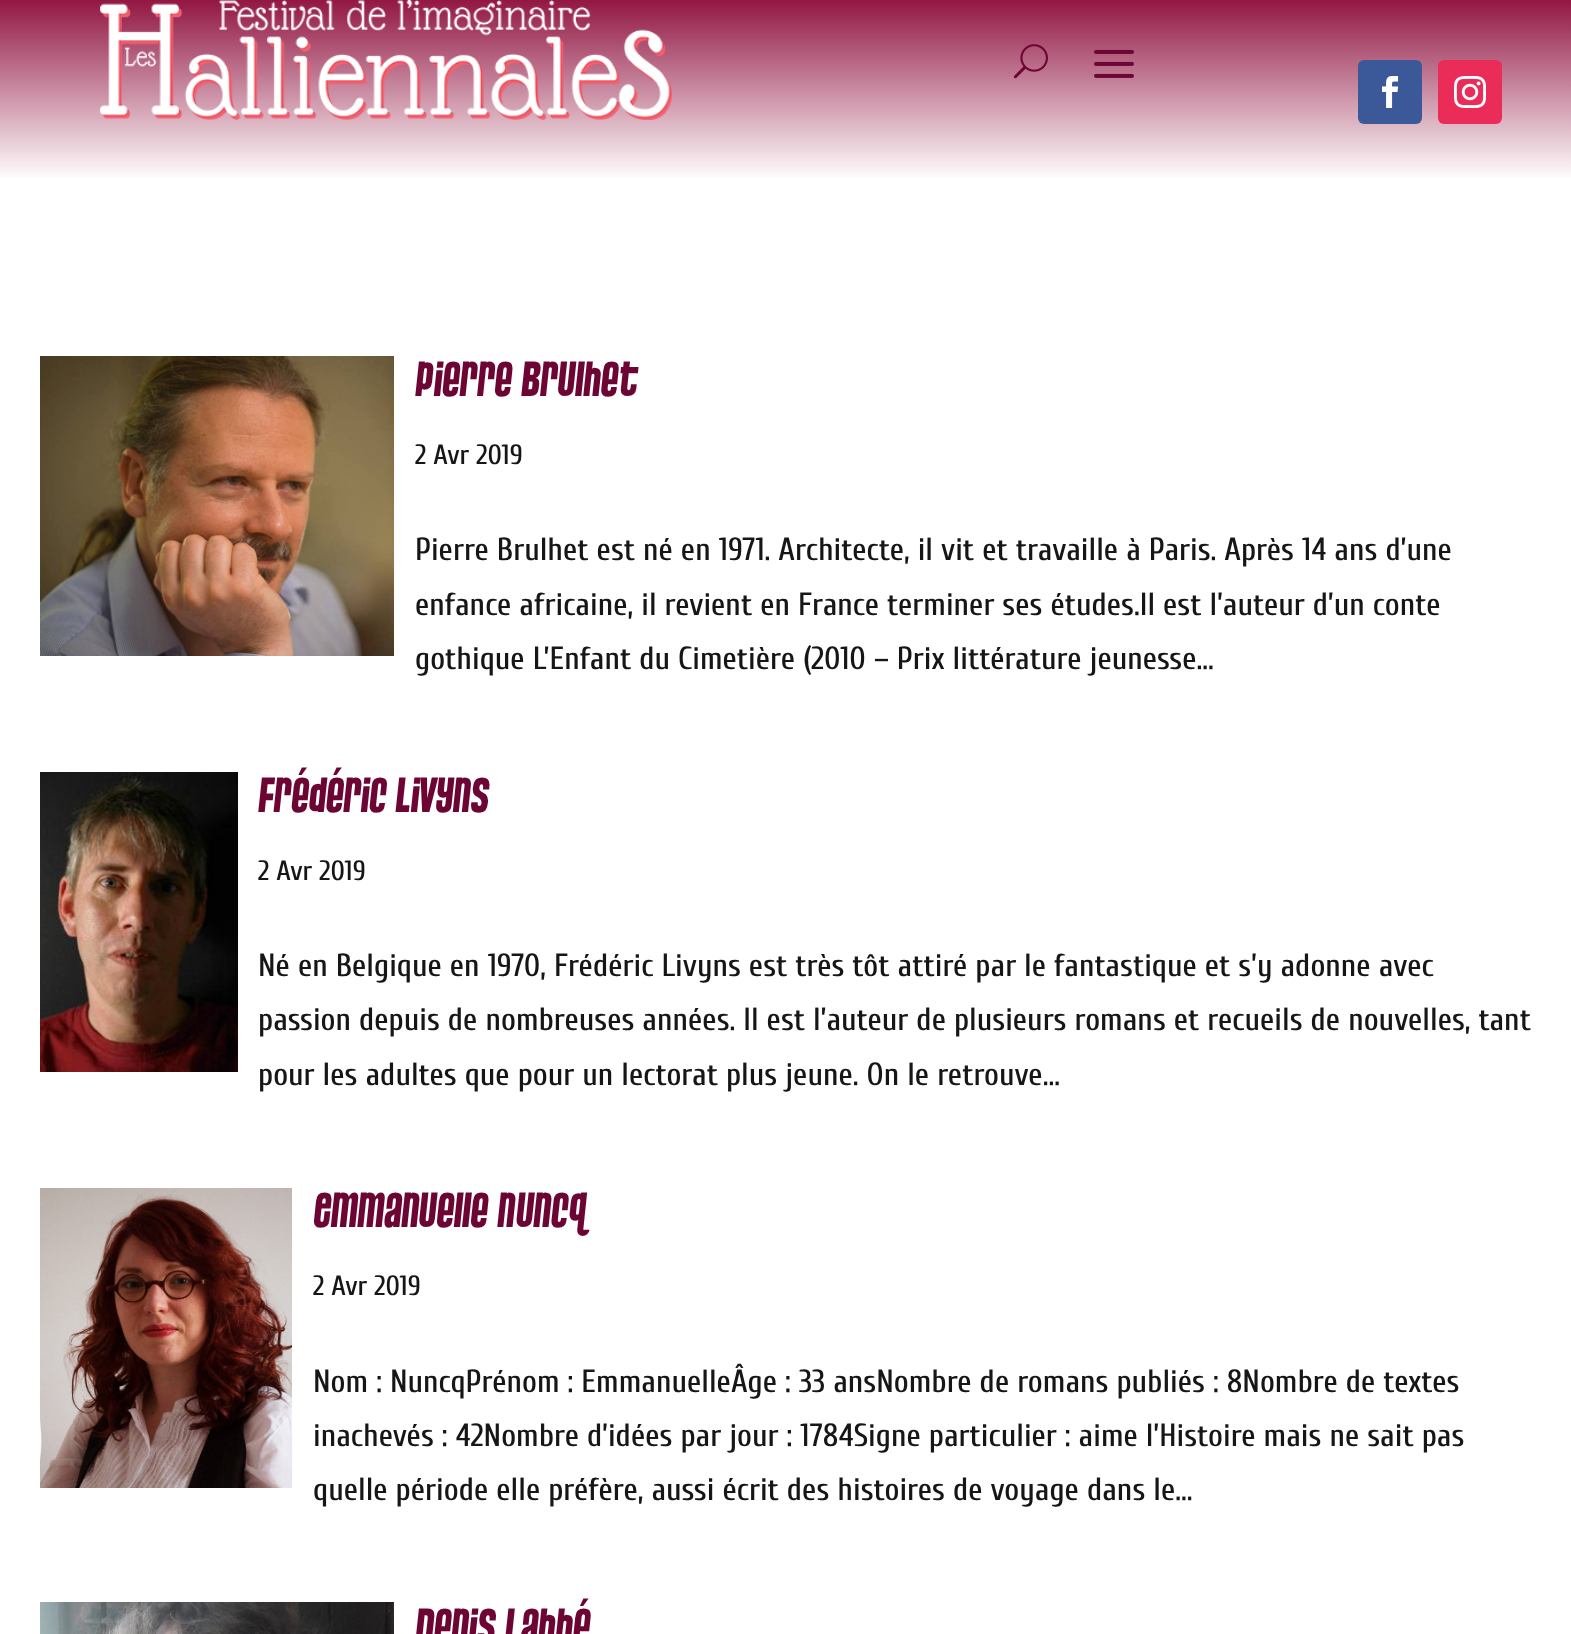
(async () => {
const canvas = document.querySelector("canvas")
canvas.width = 1571
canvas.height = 1634
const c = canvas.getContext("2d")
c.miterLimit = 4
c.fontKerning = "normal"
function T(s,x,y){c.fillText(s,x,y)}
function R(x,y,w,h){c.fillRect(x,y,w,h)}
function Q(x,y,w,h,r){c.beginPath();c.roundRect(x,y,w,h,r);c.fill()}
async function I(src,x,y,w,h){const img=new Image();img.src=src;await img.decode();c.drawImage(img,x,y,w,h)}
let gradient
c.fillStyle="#fff"
R(0,0,1571,1634)
gradient = c.createLinearGradient(786,0,786,180)
gradient.addColorStop(0,"#921743")
gradient.addColorStop(1,"#fff")
c.fillStyle = gradient
R(0,0,1571,178)
await I("1.png",100,0,572,120)
await I("2.png",1013,44,35,35)
await I("3.png",1094,49,40,29)
c.fillStyle="#3b5998"
Q(1358,60,64,64,6)
await I("4.png",1382,76,17,32)
c.fillStyle="#ea2c59"
Q(1438,60,64,64,6)
await I("5.png",1454,76,32,32)
await I("6.png",40,356,354,300)
c.font="52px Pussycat"
c.fillStyle="#6d0534"
T("Pierre Brulhet",415,396)
c.font="500 28px Cuprum"
c.fillStyle="#161616"
T("2 Avr 2019",415,464)
c.font="500 32px Cuprum"
T("Pierre Brulhet est né en 1971. Architecte, il vit et travaille à Paris. Après 14 ans d’une",415,560)
T("enfance africaine, il revient en France terminer ses études.Il est l’auteur d’un conte",415,615)
T("gothique L’Enfant du Cimetière (2010 – Prix littérature jeunesse...",415,669)
await I("7.png",40,772,198,300)
c.font="52px Pussycat"
c.fillStyle="#6d0534"
T("Frédéric Livyns",258,812)
c.font="500 28px Cuprum"
c.fillStyle="#161616"
T("2 Avr 2019",258,880)
c.font="500 32px Cuprum"
T("Né en Belgique en 1970, Frédéric Livyns est très tôt attiré par le fantastique et s’y adonne avec",258,976)
T("passion depuis de nombreuses années. Il est l’auteur de plusieurs romans et recueils de nouvelles, tant",258,1030)
T("pour les adultes que pour un lectorat plus jeune. On le retrouve...",258,1085)
await I("8.png",40,1188,252,300)
c.font="52px Pussycat"
c.fillStyle="#6d0534"
T("Emmanuelle Nuncq",313,1227)
c.font="500 28px Cuprum"
c.fillStyle="#161616"
T("2 Avr 2019",313,1295)
c.font="500 32px Cuprum"
T("Nom : NuncqPrénom : EmmanuelleÂge : 33 ansNombre de romans publiés : 8Nombre de textes",313,1392)
T("inachevés : 42Nombre d’idées par jour : 1784Signe particulier : aime l’Histoire mais ne sait pas",313,1446)
T("quelle période elle préfère, aussi écrit des histoires de voyage dans le...",313,1500)
await I("9.png",40,1602,354,32)
c.font="52px Pussycat"
c.fillStyle="#6d0534"
T("Denis Labbé",415,1643)
})()
